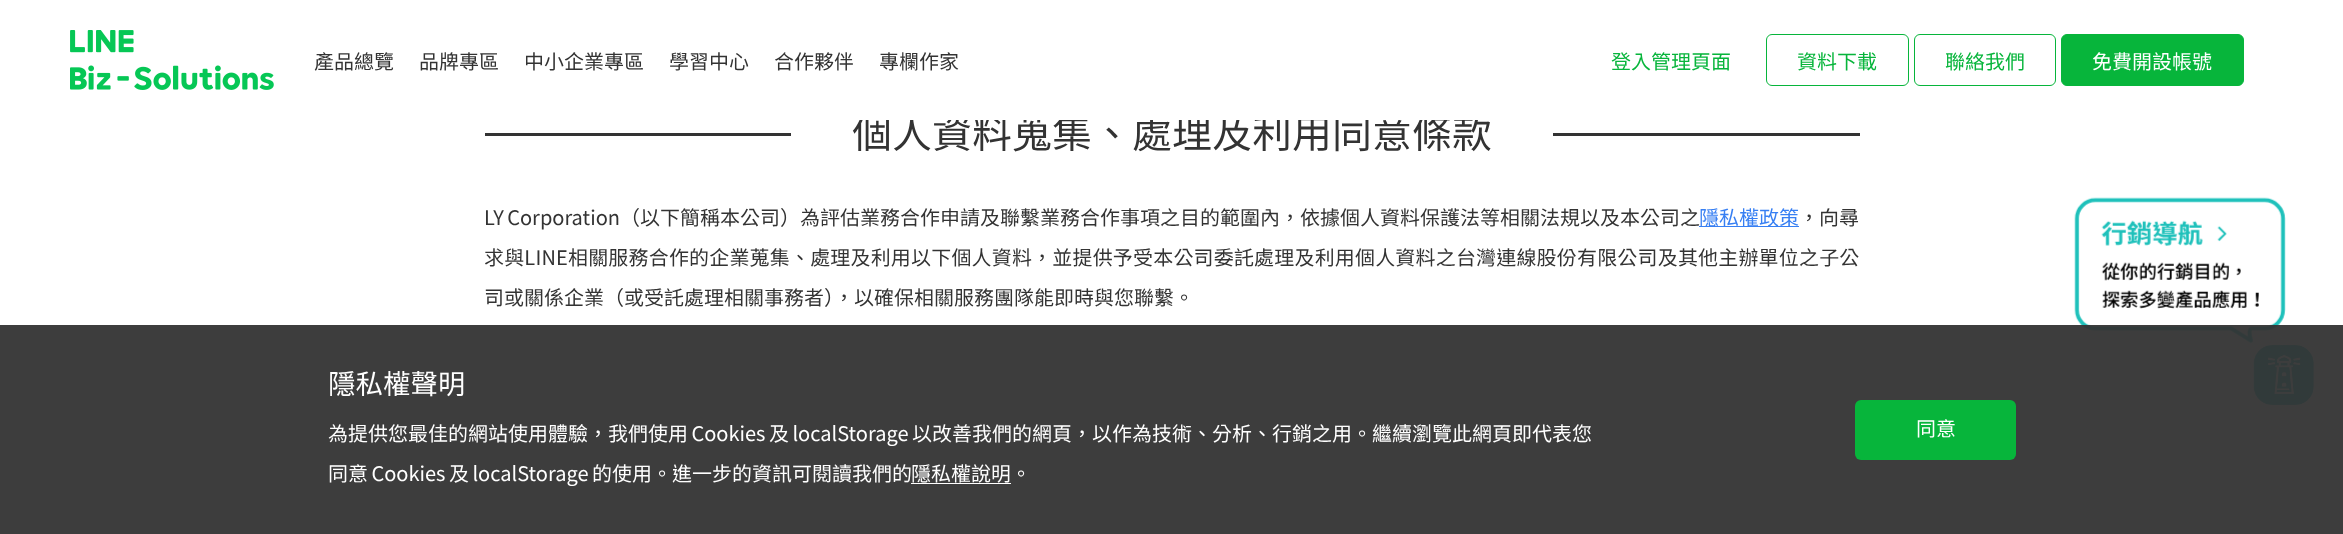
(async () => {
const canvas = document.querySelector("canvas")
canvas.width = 2343
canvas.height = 534
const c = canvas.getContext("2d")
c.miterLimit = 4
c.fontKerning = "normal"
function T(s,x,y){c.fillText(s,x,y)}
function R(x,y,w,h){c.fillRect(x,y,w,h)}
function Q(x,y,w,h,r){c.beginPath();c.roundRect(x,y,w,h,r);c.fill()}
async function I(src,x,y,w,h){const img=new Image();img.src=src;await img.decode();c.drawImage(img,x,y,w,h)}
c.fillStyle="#fff"
R(0,0,2343,534)
c.fillStyle="#333"
R(485,133,1375,3)
c.fillStyle="#fff"
R(791,133,762,3)
c.font="40px Noto Sans TC"
c.fillStyle="#333"
T("個人資料蒐集、處理及利用同意條款",852,148)
c.fillStyle="#fff"
R(859,114,620,6)
await I("1.png",70,30,204,60)
c.font="20px Noto Sans TC"
c.fillStyle="#333"
T("產品總覽",314,69)
T("品牌專區",419,69)
T("中小企業專區",524,69)
T("學習中心",669,69)
T("合作夥伴",774,69)
T("專欄作家",879,69)
c.fillStyle="#07b53b"
T("登入管理頁面",1611,69)
c.beginPath()
c.roundRect(1766.5,34.5,142,51,5.5)
c.strokeStyle="#07b53b"
c.stroke()
T("資料下載",1797,69)
c.beginPath()
c.roundRect(1914.5,34.5,141,51,5.5)
c.stroke()
T("聯絡我們",1945,69)
c.beginPath()
c.roundRect(2061.5,34.5,182,51,5.5)
c.fill()
c.stroke()
c.fillStyle="#fff"
T("免費開設帳號",2092,69)
c.wordSpacing="-1px"
c.fillStyle="#333"
T("LY Corporation（以下簡稱本公司）為評估業務合作申請及聯繫業務合作事項之目的範圍內，依據個人資料保護法等相關法規以及本公司之",484,225)
c.fillStyle="#377ff3"
R(1699,226,100,1)
c.wordSpacing="0px"
T("隱私權政策",1699,225)
c.fillStyle="#333"
T("，向尋",1799,225)
c.letterSpacing="0.18px"
T("求與LINE相關服務合作的企業蒐集、處理及利用以下個人資料，並提供予受本公司委託處理及利用個人資料之台灣連線股份有限公司及其他主辦單位之子公",484,265)
c.letterSpacing="0px"
T("司或關係企業（或受託處理相關事務者），以確保相關服務團隊能即時與您聯繫。",484,305)
await I("2.png",2074,197,212,146)
await I("3.png",2253,345,61,60)
c.fillStyle="#333333f2"
R(0,325,2343,209)
c.font="27.5px Noto Sans TC"
c.fillStyle="#fff"
T("隱私權聲明",328,394)
c.wordSpacing="-1px"
c.font="20px Noto Sans TC"
T("為提供您最佳的網站使用體驗，我們使用 Cookies 及 localStorage 以改善我們的網頁，以作為技術、分析、行銷之用。繼續瀏覽此網頁即代表您",328,441)
T("同意 Cookies 及 localStorage 的使用。進一步的資訊可閱讀我們的",328,481)
c.wordSpacing="0px"
T("隱私權說明。",911,481)
R(911,483,100,1)
c.fillStyle="#07b53b"
Q(1855,400,161,60,6)
c.fillStyle="#fff"
T("同意",1916,436)
})()
